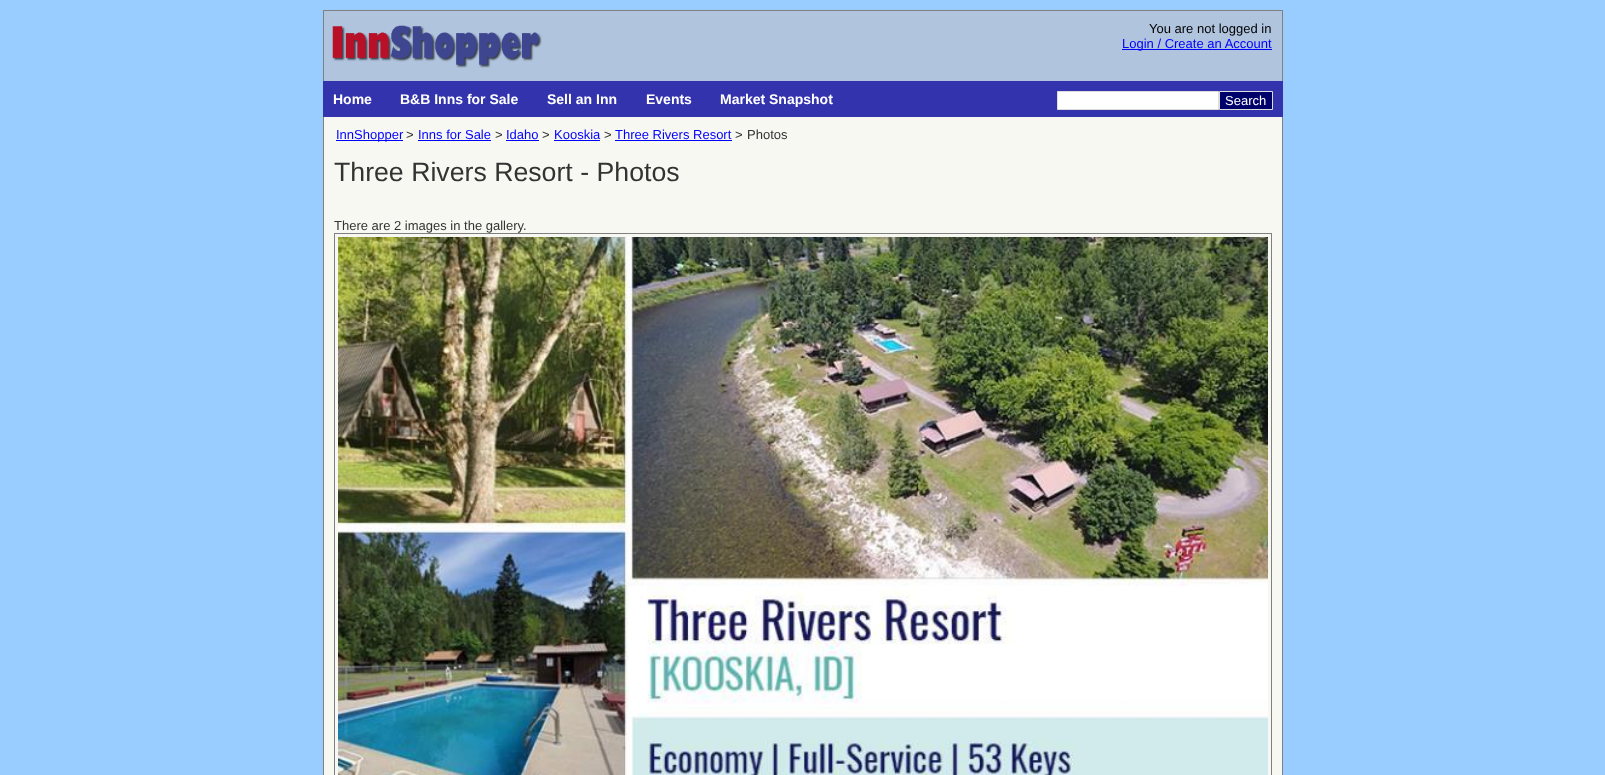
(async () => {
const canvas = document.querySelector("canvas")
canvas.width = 1605
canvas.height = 775
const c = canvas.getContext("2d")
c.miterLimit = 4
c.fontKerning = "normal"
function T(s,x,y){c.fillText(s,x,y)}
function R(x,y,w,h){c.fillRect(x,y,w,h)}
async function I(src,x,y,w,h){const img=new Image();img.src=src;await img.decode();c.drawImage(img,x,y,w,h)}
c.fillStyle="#9cf"
R(0,0,1605,775)
c.fillStyle="#b0c4de"
R(324,11,958,70)
c.fillStyle="#808080"
R(323,10,960,1)
R(1282,10,1,71)
R(323,10,1,71)
await I("1.png",332,25,210,43)
c.font="13px Liberation Sans"
c.fillStyle="#000"
T("You are not logged in",1149,33)
c.fillStyle="#00f"
R(1122,49,150,1)
T("Login / Create an Account",1122,48)
c.fillStyle="#3333ad"
R(323,81,960,36)
c.font="bold 14px Liberation Sans"
c.fillStyle="#fff"
T("Home",333,104)
T("B&B Inns for Sale",400,104)
T("Sell an Inn",547,104)
T("Events",646,104)
T("Market Snapshot",720,104)
c.beginPath()
c.rect(1057.5,91.5,161,18)
c.fill()
c.strokeStyle="#ddd"
c.stroke()
c.fillStyle="#00006b"
c.beginPath()
c.rect(1219.5,91.5,53,18)
c.fill()
c.stroke()
c.font="13px Liberation Sans"
c.fillStyle="#fff"
T("Search",1225,105)
c.fillStyle="#f8f8f2"
R(324,117,958,658)
c.fillStyle="#808080"
R(1282,117,1,658)
R(323,117,1,658)
c.fillStyle="#00f"
R(336,140,67,1)
T("InnShopper",336,139)
c.fillStyle="#333"
T(">",406,139)
c.fillStyle="#00f"
T("Inns for Sale",418,139)
R(418,140,73,1)
c.fillStyle="#333"
T(">",495,139)
c.fillStyle="#00f"
T("Idaho",506,139)
R(506,140,33,1)
c.fillStyle="#333"
T(">",542,139)
c.fillStyle="#00f"
T("Kooskia",554,139)
R(554,140,46,1)
c.fillStyle="#333"
T(">",604,139)
c.fillStyle="#00f"
T("Three Rivers Resort",615,139)
R(615,140,117,1)
c.fillStyle="#333"
T(">",735,139)
T("Photos",747,139)
c.font="26.7px Liberation Sans"
T("Three Rivers Resort - Photos",334,181)
c.font="13px Liberation Sans"
T("There are 2 images in the gallery.",334,230)
c.strokeStyle="#808080"
c.strokeRect(334.5,233.5,937,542)
await I("2.png",338,237,930,538)
})()
